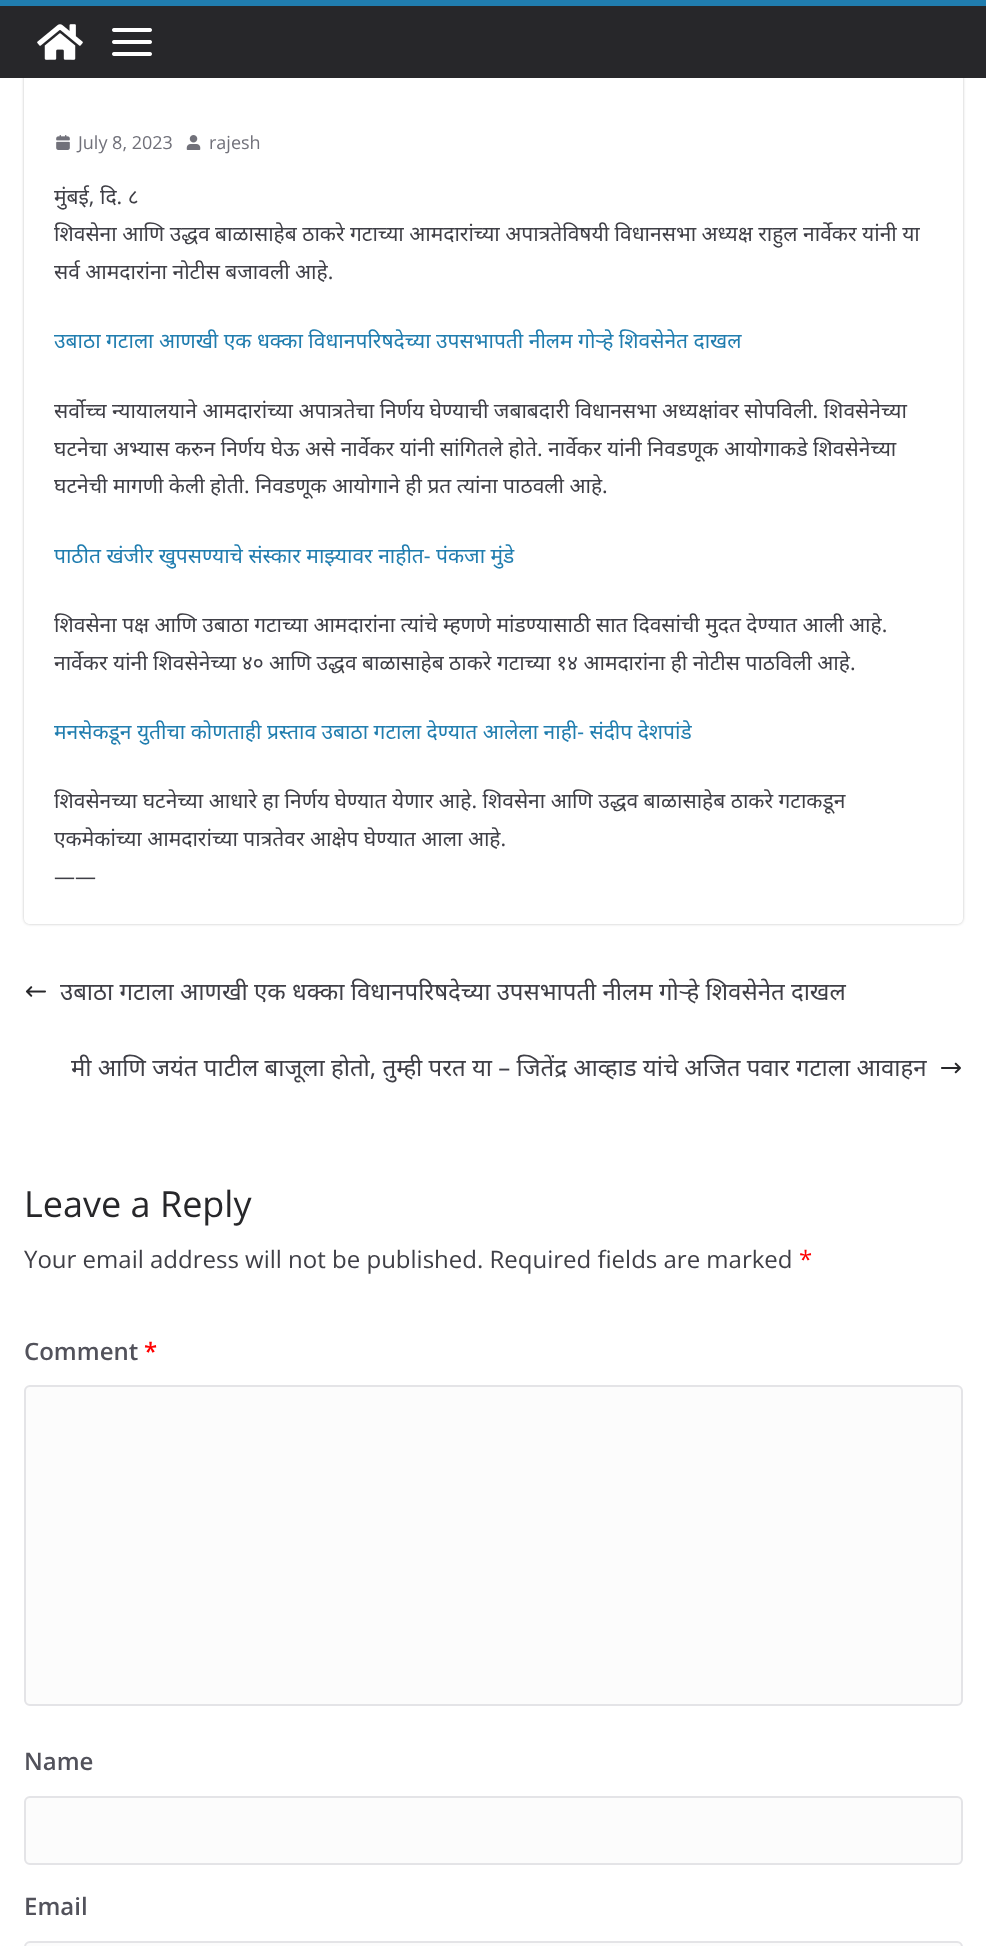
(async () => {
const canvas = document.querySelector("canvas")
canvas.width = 986
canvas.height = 1946
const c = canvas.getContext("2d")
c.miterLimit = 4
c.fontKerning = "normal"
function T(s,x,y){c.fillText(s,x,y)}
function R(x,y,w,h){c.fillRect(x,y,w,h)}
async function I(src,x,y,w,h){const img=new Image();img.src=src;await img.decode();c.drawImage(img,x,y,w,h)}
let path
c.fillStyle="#fff"
R(0,0,986,1946)
c.save()
path = new Path2D("M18 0h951v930h-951zm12-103h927c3.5 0 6 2.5 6 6v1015c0 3.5-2.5 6-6 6h-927c-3.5 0-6-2.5-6-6v-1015c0-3.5 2.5-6 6-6z")
c.clip(path,"evenodd")
c.fillStyle="#0000003d"
c.filter="blur(1.5px)"
c.beginPath()
c.roundRect(24,-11,939,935,6)
c.fill()
c.filter="none"
c.restore()
c.fillStyle="#27272a"
R(0,6,986,72)
c.fillStyle="#207daf"
R(0,0,986,6)
await I("1.png",37,24,46,36)
await I("2.png",112,28,40,28)
await I("3.png",56,135,14,15)
c.font="18px Open Sans"
c.fillStyle="#71717a"
T("July 8, 2023",78,149)
await I("4.png",186,135,15,15)
T("rajesh",209,149)
c.font="21px Noto Sans"
c.fillStyle="#3f3f46"
T("मुंबई, दि. ८",54,204)
T("शिवसेना आणि उद्धव बाळासाहेब ठाकरे गटाच्या आमदारांच्या अपात्रतेविषयी विधानसभा अध्यक्ष राहुल नार्वेकर यांनी या",54,241)
T("सर्व आमदारांना नोटीस बजावली आहे.",54,279)
c.fillStyle="#207daf"
T("उबाठा गटाला आणखी एक धक्का विधानपरिषदेच्या उपसभापती नीलम गोऱ्हे शिवसेनेत दाखल",54,348)
c.fillStyle="#3f3f46"
T("सर्वोच्च न्यायालयाने आमदारांच्या अपात्रतेचा निर्णय घेण्याची जबाबदारी विधानसभा अध्यक्षांवर सोपविली. शिवसेनेच्या",54,418)
T("घटनेचा अभ्यास करुन निर्णय घेऊ असे नार्वेकर यांनी सांगितले होते. नार्वेकर यांनी निवडणूक आयोगाकडे शिवसेनेच्या",54,456)
T("घटनेची मागणी केली होती. निवडणूक आयोगाने ही प्रत त्यांना पाठवली आहे.",54,493)
c.fillStyle="#207daf"
T("पाठीत खंजीर खुपसण्याचे संस्कार माझ्यावर नाहीत- पंकजा मुंडे",54,563)
c.fillStyle="#3f3f46"
T("शिवसेना पक्ष आणि उबाठा गटाच्या आमदारांना त्यांचे म्हणणे मांडण्यासाठी सात दिवसांची मुदत देण्यात आली आहे.",54,632)
T("नार्वेकर यांनी शिवसेनेच्या ४० आणि उद्धव बाळासाहेब ठाकरे गटाच्या १४ आमदारांना ही नोटीस पाठविली आहे.",54,670)
c.fillStyle="#207daf"
T("मनसेकडून युतीचा कोणताही प्रस्ताव उबाठा गटाला देण्यात आलेला नाही- संदीप देशपांडे",54,739)
c.fillStyle="#3f3f46"
T("शिवसेनच्या घटनेच्या आधारे हा निर्णय घेण्यात येणार आहे. शिवसेना आणि उद्धव बाळासाहेब ठाकरे गटाकडून",54,808)
T("एकमेकांच्या आमदारांच्या पात्रतेवर आक्षेप घेण्यात आला आहे.",54,846)
c.font="21px Open Sans"
T("——",54,884)
await I("5.png",25,986,21,11)
c.font="24px Noto Sans"
T("उबाठा गटाला आणखी एक धक्का विधानपरिषदेच्या उपसभापती नीलम गोऱ्हे शिवसेनेत दाखल",60,1000)
T("मी आणि जयंत पाटील बाजूला होतो, तुम्ही परत या – जितेंद्र आव्हाड यांचे अजित पवार गटाला आवाहन",71,1076)
await I("6.png",941,1062,20,12)
c.font="36px Open Sans"
c.fillStyle="#27272a"
T("Leave a Reply",24,1217)
c.font="24px Open Sans"
c.fillStyle="#3f3f46"
T("Your email address will not be published. Required fields are marked",24,1268)
c.fillStyle="#f00"
T("*",799,1268)
c.font="600 24px Open Sans"
c.fillStyle="#52525b"
T("Comment",24,1360)
c.fillStyle="#f00"
T("*",144,1360)
c.fillStyle="#fcfcfc"
c.beginPath()
c.roundRect(25,1386,937,319,5)
c.fill()
c.strokeStyle="#e4e4e7"
c.lineWidth=2
c.stroke()
c.fillStyle="#52525b"
T("Name",24,1770)
c.fillStyle="#fcfcfc"
c.beginPath()
c.roundRect(25,1797,937,67,5)
c.fill()
c.stroke()
c.fillStyle="#52525b"
T("Email",24,1915)
c.fillStyle="#fcfcfc"
c.beginPath()
c.roundRect(25,1942,937,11,5)
c.fill()
c.stroke()
})()
